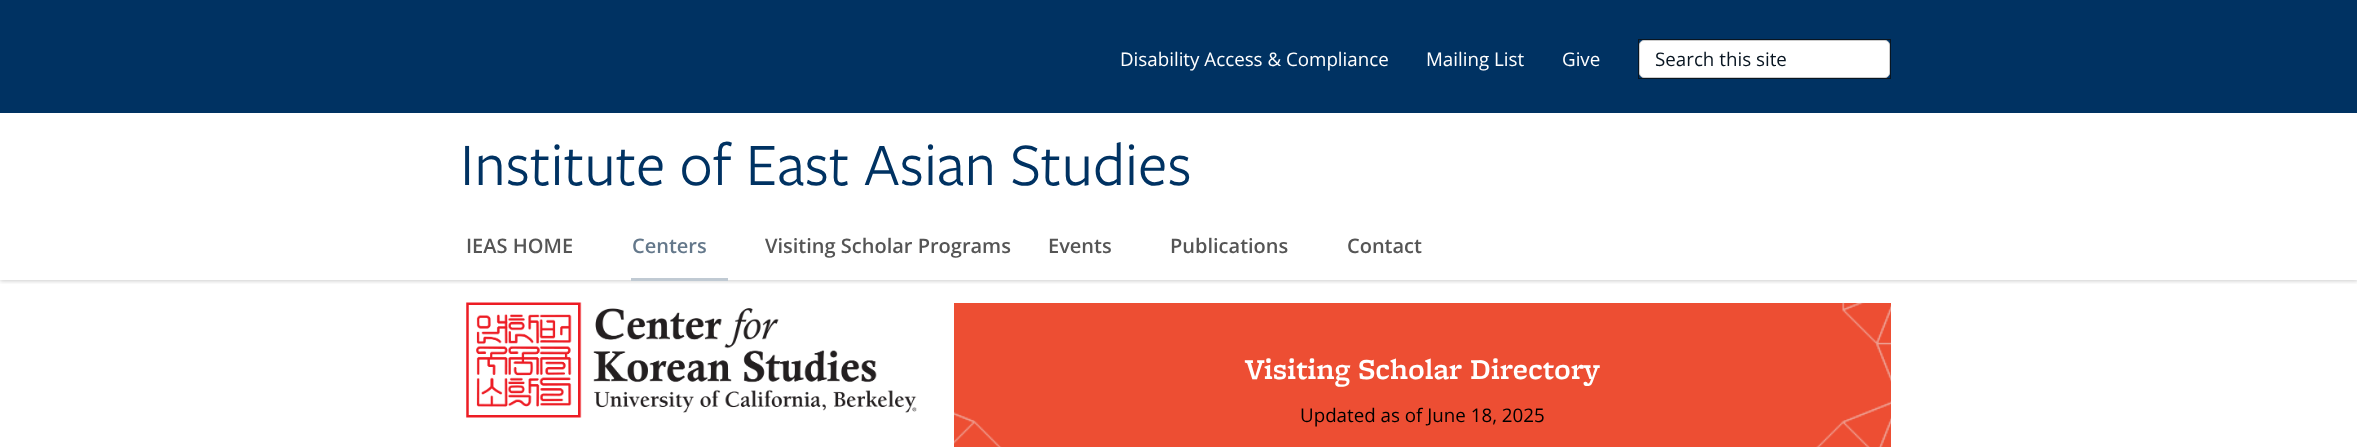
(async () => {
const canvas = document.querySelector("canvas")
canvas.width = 2357
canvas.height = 447
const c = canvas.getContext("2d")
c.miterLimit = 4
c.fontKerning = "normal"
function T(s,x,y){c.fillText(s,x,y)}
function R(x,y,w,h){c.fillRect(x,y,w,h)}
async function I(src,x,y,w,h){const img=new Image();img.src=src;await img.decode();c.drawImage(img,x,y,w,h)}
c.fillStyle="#fff"
R(0,0,2357,447)
c.save()
c.beginPath()
c.rect(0,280,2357,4)
c.clip()
c.fillStyle="#00000033"
c.filter="blur(2px)"
c.beginPath()
c.rect(0,1,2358,280)
c.fill()
c.filter="none"
c.restore()
c.fillStyle="#003262"
R(0,0,2357,113)
c.font="18.75px Open Sans"
c.fillStyle="#fff"
T("Disability Access & Compliance",1120,66)
T("Mailing List",1426,66)
T("Give",1562,66)
c.strokeStyle="#081521"
c.strokeRect(1638.5,39.5,252,39)
c.beginPath()
c.roundRect(1639.5,40.5,250,37,4.5)
c.fill()
c.strokeStyle="#ccc"
c.stroke()
c.fillStyle="#081521"
T("Search this site",1655,66)
c.font="600 20px Open Sans"
c.fillStyle="#555"
T("IEAS HOME",466,253)
c.fillStyle="#c0cad3"
R(631,278,97,3)
c.fillStyle="#64788b"
T("Centers",632,253)
c.fillStyle="#555"
T("Visiting Scholar Programs",765,253)
T("Events",1048,253)
T("Publications",1170,253)
T("Contact",1347,253)
c.font="62.5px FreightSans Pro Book"
c.fillStyle="#003262"
T("Institute of East Asian Studies",460,185)
await I("1.png",466,302,451,116)
c.fillStyle="#ed4e33"
R(954,303,937,144)
await I("2.png",954,302,937,145)
c.font="600 30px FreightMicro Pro"
c.fillStyle="#fff"
T("Visiting Scholar Directory",1245,379)
c.font="18.75px Open Sans"
c.fillStyle="#000"
T("Updated as of June 18, 2025",1300,422)
})()
